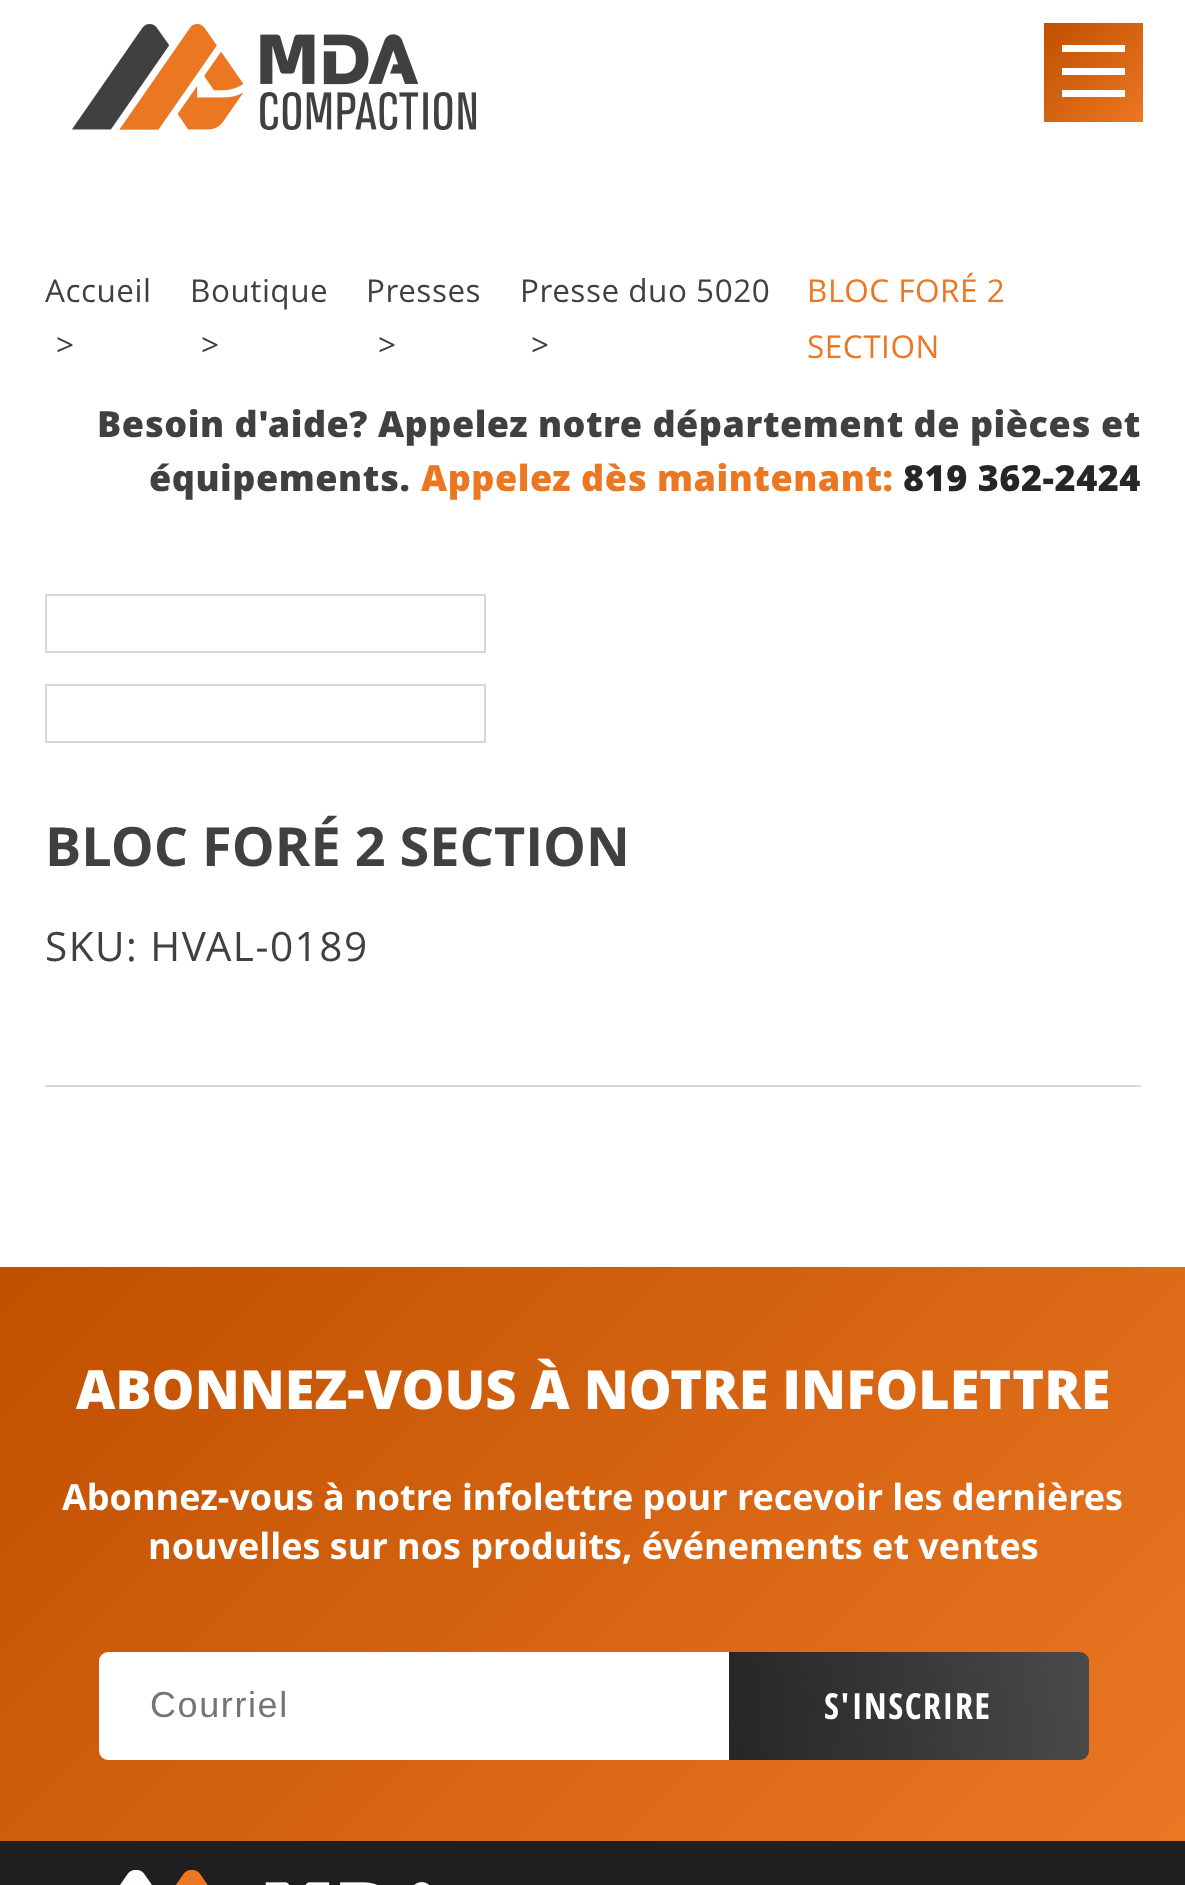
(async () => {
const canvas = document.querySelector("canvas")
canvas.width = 1185
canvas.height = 1885
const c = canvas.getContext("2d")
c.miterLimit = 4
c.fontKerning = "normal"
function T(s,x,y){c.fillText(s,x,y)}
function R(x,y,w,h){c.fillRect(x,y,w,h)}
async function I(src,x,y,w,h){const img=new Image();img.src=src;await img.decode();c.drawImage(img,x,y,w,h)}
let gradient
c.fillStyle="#fff"
R(0,0,1185,1885)
await I("1.png",72,24,405,106)
gradient = c.createLinearGradient(1044,22,1143,122)
gradient.addColorStop(0,"#bf5000")
gradient.addColorStop(1,"#eb7723")
c.fillStyle = gradient
R(1044,23,99,99)
c.fillStyle="#fff"
R(1062,68,63,7)
R(1062,45,63,7)
R(1062,90,63,7)
c.letterSpacing="0.5px"
c.font="31.5px Open Sans"
c.fillStyle="#404042"
T("Accueil",45,302)
T(">",56,356)
T("Boutique",190,302)
T(">",201,356)
T("Presses",366,302)
T(">",378,356)
T("Presse duo 5020",520,302)
T(">",531,356)
c.fillStyle="#eb7723"
T("BLOC FORÉ 2",807,302)
T("SECTION",807,358)
c.letterSpacing="0.52px"
c.font="800 36px Open Sans"
c.fillStyle="#404042"
T("Besoin d'aide? Appelez notre département de pièces et",97,437)
T("équipements.",149,491)
c.fillStyle="#eb7723"
T("Appelez dès maintenant:",421,491)
c.fillStyle="#262626"
T("819 362-2424",903,491)
c.strokeStyle="#d7d7d7"
c.lineWidth=2
c.strokeRect(46,595,439,57)
c.strokeRect(46,685,439,57)
c.letterSpacing="0px"
c.font="bold 54px Open Sans"
c.fillStyle="#404042"
T("BLOC FORÉ 2 SECTION",45,866)
c.letterSpacing="1.5px"
c.font="40.5px Open Sans"
T("SKU: HVAL-0189",45,961)
c.fillStyle="#d7d7d7"
R(45,1085,1096,2)
gradient = c.createLinearGradient(153,1114,1033,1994)
gradient.addColorStop(0,"#bf5000")
gradient.addColorStop(1,"#eb7723")
c.fillStyle = gradient
R(0,1267,1185,574)
c.letterSpacing="0px"
c.font="800 54px Open Sans"
c.fillStyle="#fff"
T("ABONNEZ-VOUS À NOTRE INFOLETTRE",76,1409)
c.font="bold 36px Open Sans"
T("Abonnez-vous à notre infolettre pour recevoir les dernières",62,1510)
T("nouvelles sur nos produits, événements et ventes",148,1559)
c.beginPath()
c.roundRect(99,1652,630,108,[9,0,0,9])
c.fill()
c.letterSpacing="1.6px"
c.font="36px Liberation Sans"
c.fillStyle="#757575"
T("Courriel",150,1717)
gradient = c.createLinearGradient(726,1722,1092,1689)
gradient.addColorStop(0,"#262626")
gradient.addColorStop(1,"#4a4a4a")
c.fillStyle = gradient
c.beginPath()
c.roundRect(729,1652,360,108,[0,9,9,0])
c.fill()
c.font="bold 36px Open Sans Condensed"
c.fillStyle="#fff"
T("S'INSCRIRE",824,1719)
c.fillStyle="#1f1f1f"
R(0,1841,1185,44)
await I("2.png",120,1870,309,15)
})()
